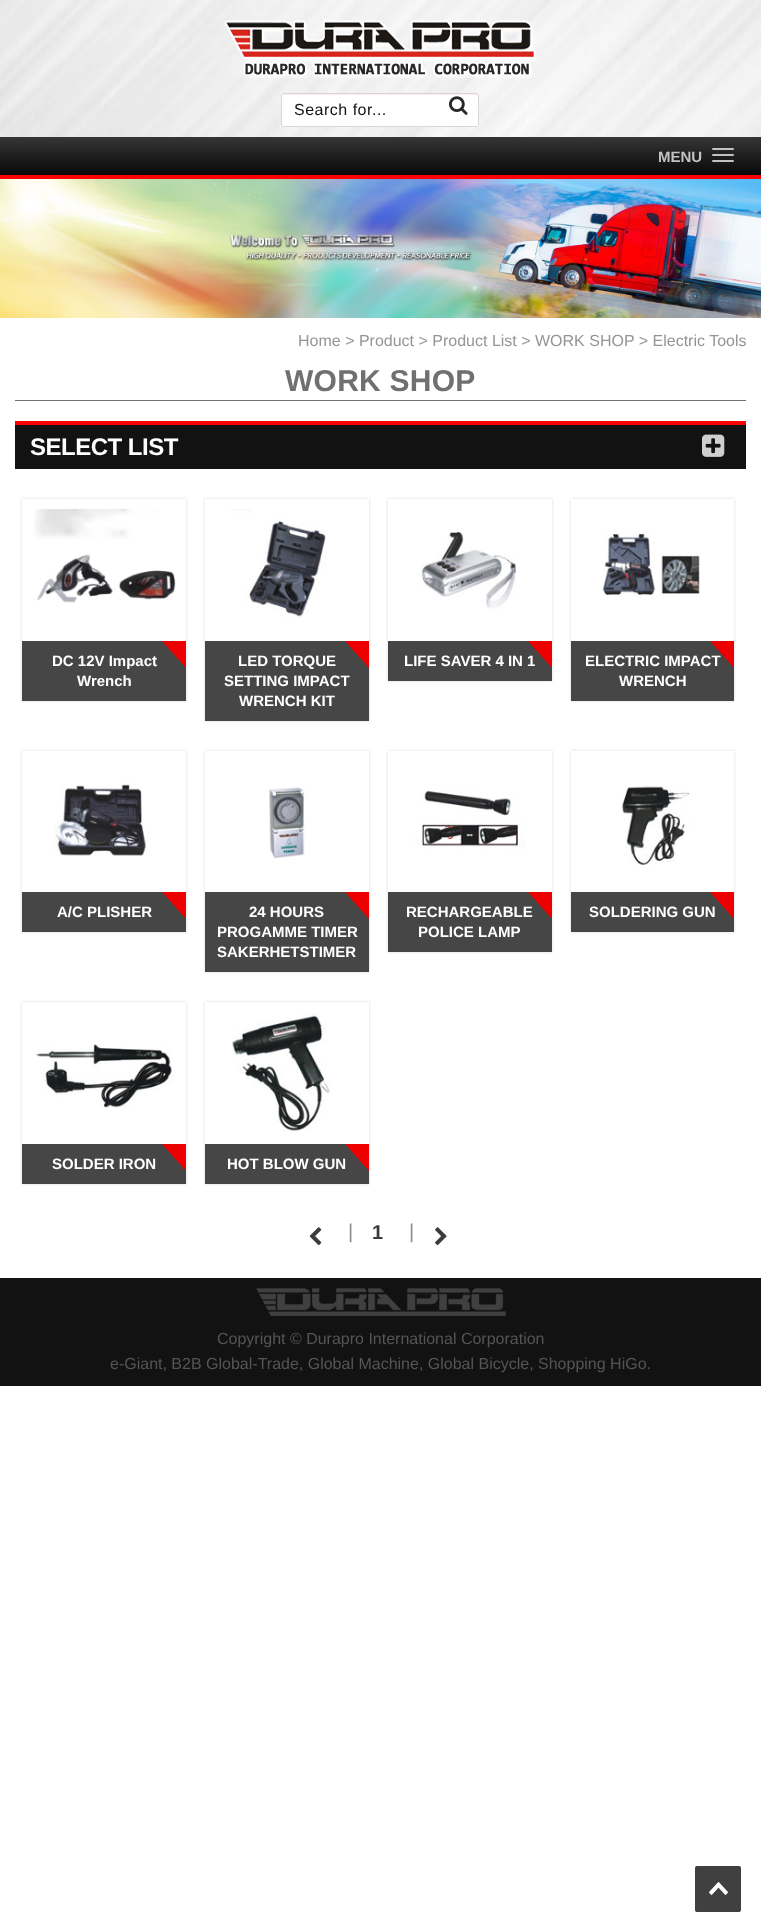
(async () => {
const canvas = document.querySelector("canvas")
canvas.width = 761
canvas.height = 1932
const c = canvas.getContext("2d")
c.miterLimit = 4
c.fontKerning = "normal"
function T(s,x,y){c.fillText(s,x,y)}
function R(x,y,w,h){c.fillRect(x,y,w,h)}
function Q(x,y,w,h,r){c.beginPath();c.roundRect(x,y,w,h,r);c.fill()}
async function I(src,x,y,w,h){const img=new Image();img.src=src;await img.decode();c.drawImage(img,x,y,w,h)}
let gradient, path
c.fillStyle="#fff"
R(0,0,761,1932)
await I("1.png",0,0,761,137)
await I("2.png",224,20,313,58)
Q(281,93,198,34,3)
c.fillStyle="#feecec"
path = new Path2D("M284 95h192l2 1v1v-1c0-1-1-2-2-2h-192c-1 0-2 1-2 2v1c0-1 1-2 2-2z")
c.fill(path)
c.beginPath()
c.roundRect(281.5,93.5,197,33,2.5)
c.strokeStyle="#d7d7d7"
c.stroke()
c.letterSpacing="0.5px"
c.font="16px Liberation Sans"
c.fillStyle="#121212"
T("Search for...",294,115)
await I("3.png",449,96,19,19)
gradient = c.createLinearGradient(381,137,381,175)
gradient.addColorStop(0,"#363636")
gradient.addColorStop(1,"#080808")
c.fillStyle = gradient
R(0,137,761,38)
c.fillStyle="#f00"
R(0,175,761,4)
c.letterSpacing="0px"
c.font="bold 15px Liberation Sans"
c.fillStyle="#c2c2c2"
T("MENU",658,162)
Q(712,148,22,2,1)
Q(712,154,22,2,1)
Q(712,160,22,2,1)
await I("4.png",0,179,761,139)
c.font="16px Liberation Sans"
c.fillStyle="#959595"
T("Home > Product > Product List > WORK SHOP > Electric Tools",298,346)
c.fillStyle="#707070"
R(15,400,731,1)
c.letterSpacing="0.25px"
c.font="bold 30px Liberation Sans"
T("WORK SHOP",285,391)
c.fillStyle="#121212"
R(15,425,731,44)
c.fillStyle="#f00"
R(15,421,731,4)
c.letterSpacing="-0.5px"
c.font="bold 24px Liberation Sans"
c.fillStyle="#fff"
T("SELECT LIST",30,455)
await I("5.png",702,434,23,23)
c.save()
path = new Path2D("M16 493h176v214h-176zm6 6h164v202h-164z")
c.clip(path,"evenodd")
c.fillStyle="#00000026"
c.filter="blur(1.5px)"
c.beginPath()
c.rect(22,499,164,202)
c.fill()
c.filter="none"
c.restore()
await I("6.png",33,509,143,94)
c.fillStyle="#464646"
R(22,641,164,60)
await I("7.png",162,641,24,27)
c.letterSpacing="0px"
c.font="bold 15px Liberation Sans"
c.fillStyle="#fff"
T("DC 12V Impact",52,666)
T("Wrench",77,686)
c.save()
path = new Path2D("M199 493h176v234h-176zm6 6h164v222h-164z")
c.clip(path,"evenodd")
c.fillStyle="#00000026"
c.filter="blur(1.5px)"
c.beginPath()
c.rect(205,499,164,222)
c.fill()
c.filter="none"
c.restore()
await I("8.png",230,509,96,109)
c.fillStyle="#464646"
R(205,641,164,80)
await I("7.png",345,641,24,27)
c.fillStyle="#fff"
T("LED TORQUE",238,666)
T("SETTING IMPACT",224,686)
T("WRENCH KIT",239,706)
c.save()
path = new Path2D("M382 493h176v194h-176zm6 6h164v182h-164z")
c.clip(path,"evenodd")
c.fillStyle="#00000026"
c.filter="blur(1.5px)"
c.beginPath()
c.rect(388,499,164,182)
c.fill()
c.filter="none"
c.restore()
await I("9.png",420,531,97,79)
c.fillStyle="#464646"
R(388,641,164,40)
await I("7.png",528,641,24,27)
c.fillStyle="#fff"
T("LIFE SAVER 4 IN 1",404,666)
c.save()
path = new Path2D("M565 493h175v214h-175zm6 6h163v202h-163z")
c.clip(path,"evenodd")
c.fillStyle="#00000026"
c.filter="blur(1.5px)"
c.beginPath()
c.rect(571,499,163,202)
c.fill()
c.filter="none"
c.restore()
await I("10.png",603,532,98,65)
c.fillStyle="#464646"
R(571,641,163,60)
await I("7.png",710,641,24,27)
c.fillStyle="#fff"
T("ELECTRIC IMPACT",585,666)
T("WRENCH",619,686)
c.save()
path = new Path2D("M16 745h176v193h-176zm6 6h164v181h-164z")
c.clip(path,"evenodd")
c.fillStyle="#00000026"
c.filter="blur(1.5px)"
c.beginPath()
c.rect(22,751,164,181)
c.fill()
c.filter="none"
c.restore()
await I("11.png",54,783,93,73)
c.fillStyle="#464646"
R(22,892,164,40)
await I("7.png",162,892,24,27)
c.fillStyle="#fff"
T("A/C PLISHER",57,917)
c.save()
path = new Path2D("M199 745h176v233h-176zm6 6h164v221h-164z")
c.clip(path,"evenodd")
c.fillStyle="#00000026"
c.filter="blur(1.5px)"
c.beginPath()
c.rect(205,751,164,221)
c.fill()
c.filter="none"
c.restore()
await I("12.png",269,786,36,73)
c.fillStyle="#464646"
R(205,892,164,80)
await I("7.png",345,892,24,27)
c.fillStyle="#fff"
T("24 HOURS",249,917)
T("PROGAMME TIMER",217,937)
T("SAKERHETSTIMER",217,957)
c.save()
path = new Path2D("M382 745h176v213h-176zm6 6h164v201h-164z")
c.clip(path,"evenodd")
c.fillStyle="#00000026"
c.filter="blur(1.5px)"
c.beginPath()
c.rect(388,751,164,201)
c.fill()
c.filter="none"
c.restore()
await I("13.png",415,790,110,59)
c.fillStyle="#464646"
R(388,892,164,60)
await I("7.png",528,892,24,27)
c.fillStyle="#fff"
T("RECHARGEABLE",406,917)
T("POLICE LAMP",418,937)
c.save()
path = new Path2D("M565 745h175v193h-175zm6 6h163v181h-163z")
c.clip(path,"evenodd")
c.fillStyle="#00000026"
c.filter="blur(1.5px)"
c.beginPath()
c.rect(571,751,163,181)
c.fill()
c.filter="none"
c.restore()
await I("14.png",622,786,68,80)
c.fillStyle="#464646"
R(571,892,163,40)
await I("7.png",710,892,24,27)
c.fillStyle="#fff"
T("SOLDERING GUN",589,917)
c.save()
path = new Path2D("M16 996h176v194h-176zm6 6h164v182h-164z")
c.clip(path,"evenodd")
c.fillStyle="#00000026"
c.filter="blur(1.5px)"
c.beginPath()
c.rect(22,1002,164,182)
c.fill()
c.filter="none"
c.restore()
await I("15.png",33,1043,140,65)
c.fillStyle="#464646"
R(22,1144,164,40)
await I("7.png",162,1144,24,27)
c.fillStyle="#fff"
T("SOLDER IRON",52,1169)
c.save()
path = new Path2D("M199 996h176v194h-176zm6 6h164v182h-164z")
c.clip(path,"evenodd")
c.fillStyle="#00000026"
c.filter="blur(1.5px)"
c.beginPath()
c.rect(205,1002,164,182)
c.fill()
c.filter="none"
c.restore()
await I("16.png",232,1013,98,118)
c.fillStyle="#464646"
R(205,1144,164,40)
await I("7.png",345,1144,24,27)
c.fillStyle="#fff"
T("HOT BLOW GUN",227,1169)
await I("17.png",309,1227,13,19)
c.font="20px Liberation Sans"
c.fillStyle="#8c8c8c"
T("|",348,1238)
c.font="bold 20px Liberation Sans"
c.fillStyle="#3b3b3b"
T("1",372,1239)
c.font="20px Liberation Sans"
c.fillStyle="#8c8c8c"
T("|",409,1238)
await I("18.png",435,1227,12,19)
c.fillStyle="#121212"
R(0,1278,761,108)
await I("19.png",256,1288,250,28)
c.font="16px Liberation Sans"
c.fillStyle="#555"
T("Copyright © Durapro International Corporation",217,1344)
T("e-Giant, B2B Global-Trade, Global Machine, Global Bicycle, Shopping HiGo.",110,1369)
await I("20.png",695,1866,46,46)
})()
